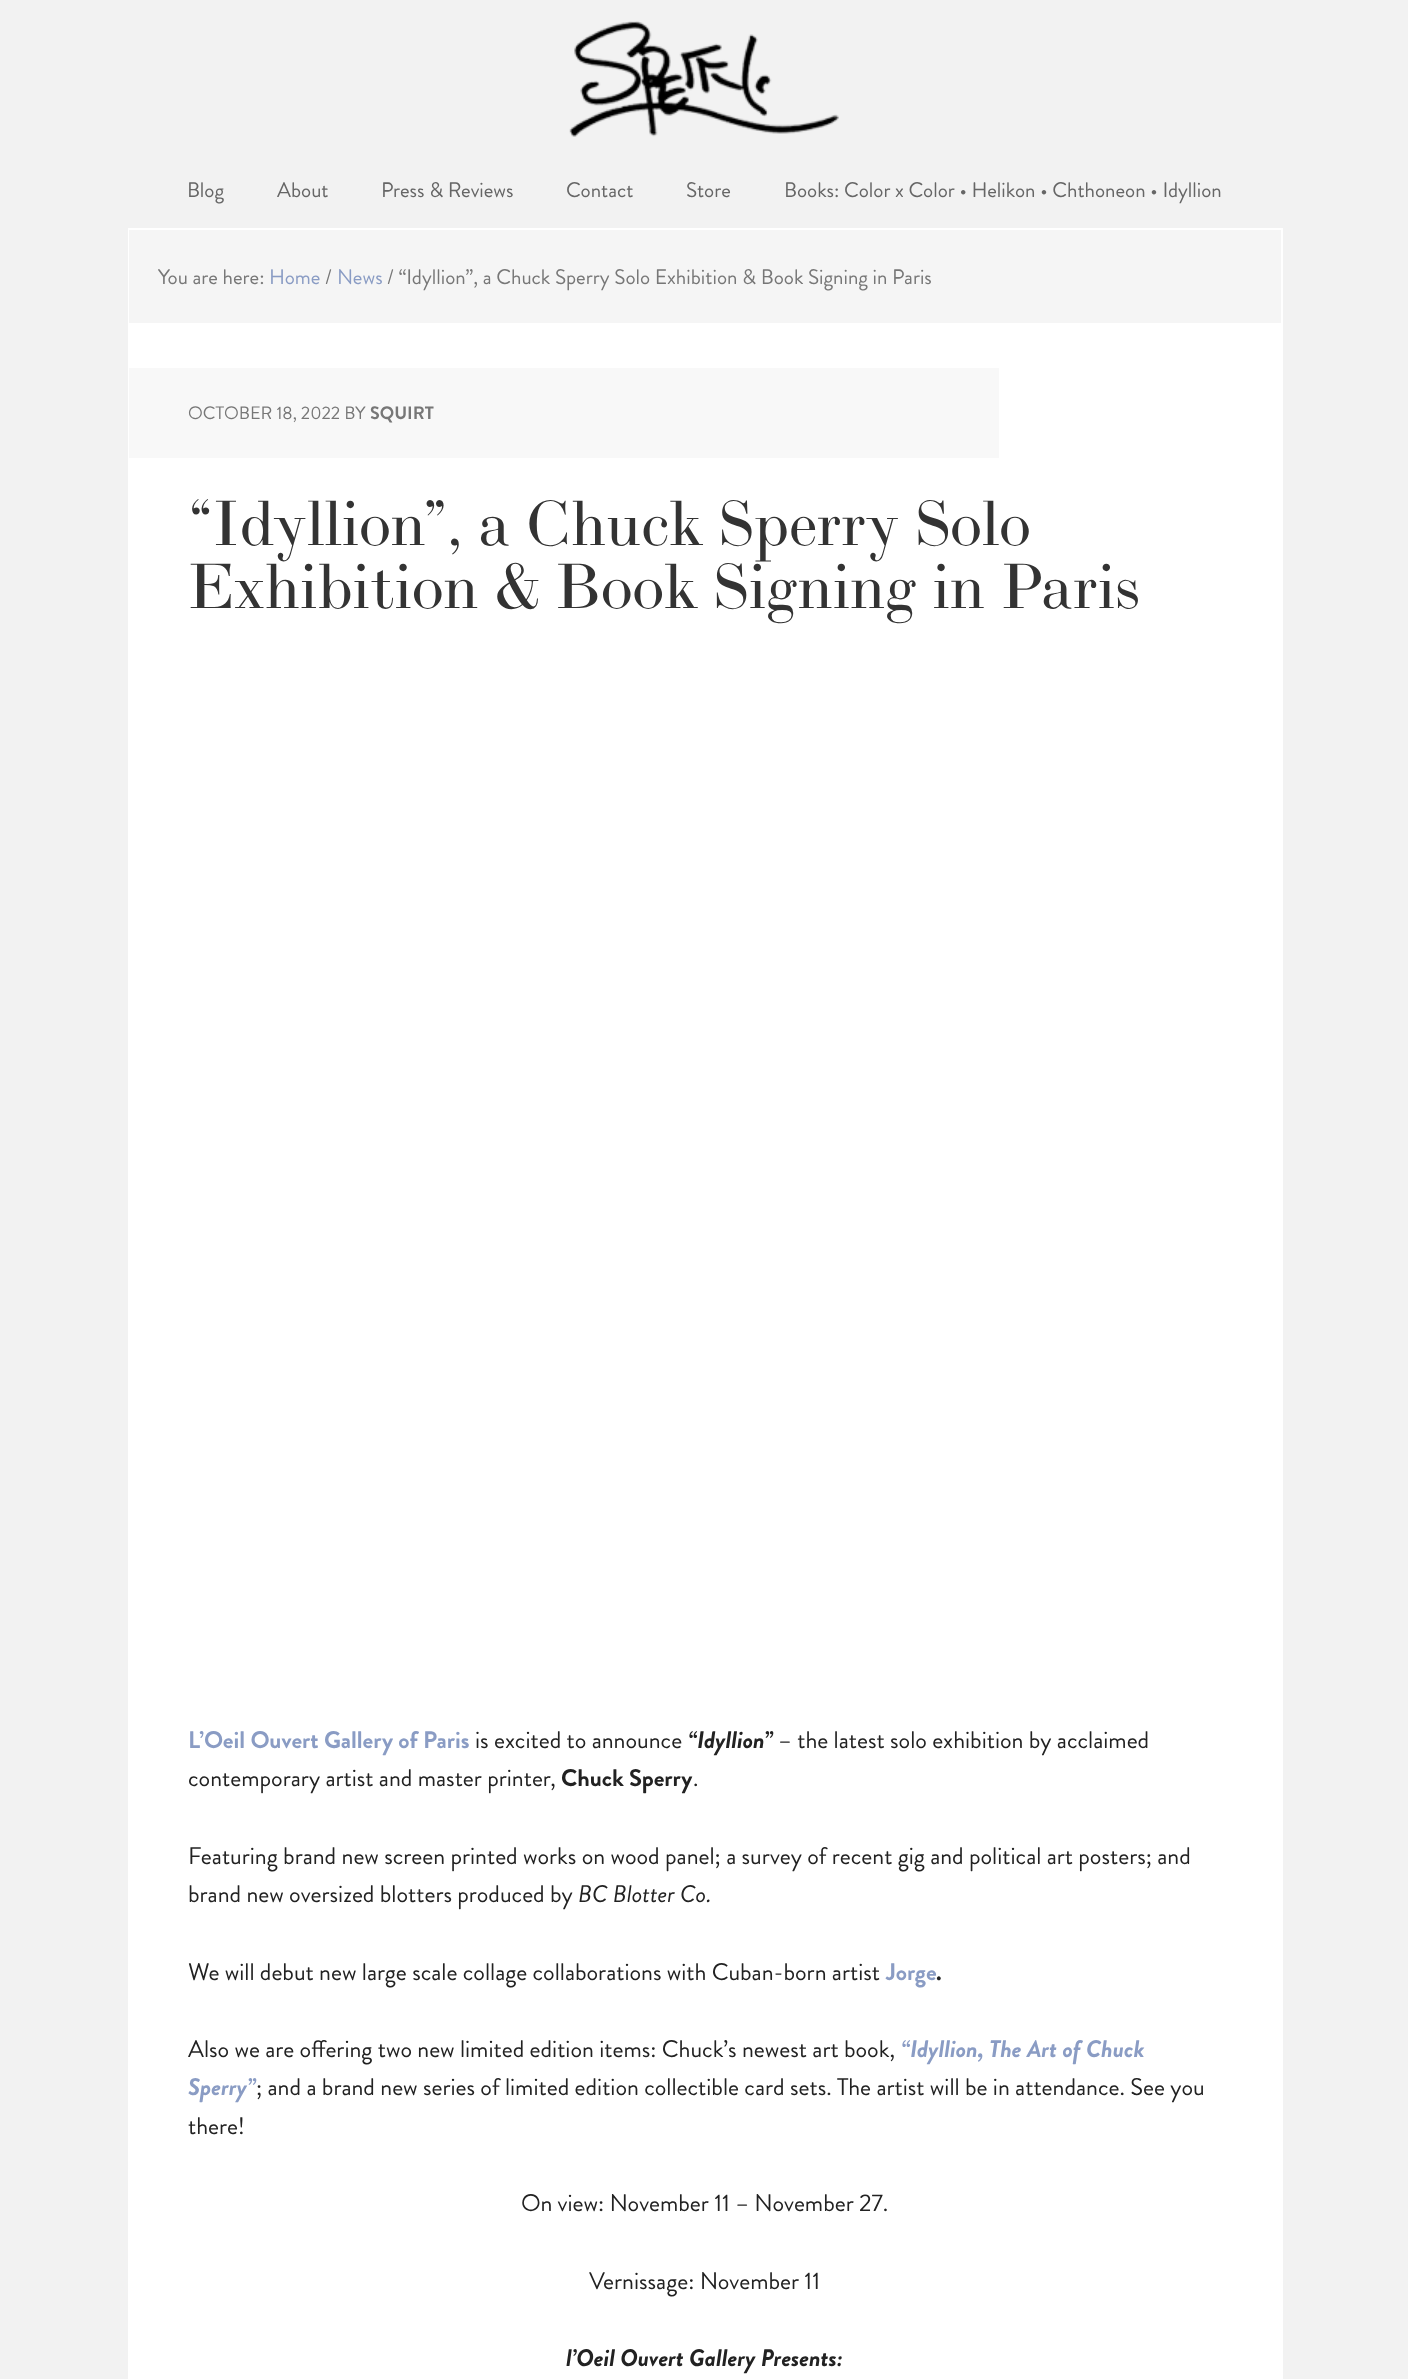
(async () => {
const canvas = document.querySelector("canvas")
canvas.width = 1408
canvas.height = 2379
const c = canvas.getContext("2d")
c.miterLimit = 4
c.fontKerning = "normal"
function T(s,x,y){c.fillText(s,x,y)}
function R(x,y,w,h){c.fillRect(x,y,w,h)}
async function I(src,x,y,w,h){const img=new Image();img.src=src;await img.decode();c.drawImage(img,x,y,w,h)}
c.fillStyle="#f2f2f2"
R(0,0,1408,2379)
await I("1.png",569,21,270,116)
c.font="21px Brandon Grotesque"
c.fillStyle="#666"
T("Blog",187,197)
T("About",277,197)
T("Press & Reviews",381,197)
T("Contact",566,197)
T("Store",686,197)
T("Books: Color x Color • Helikon • Chthoneon • Idyllion",784,197)
c.strokeStyle="#fff"
c.lineWidth=2
c.strokeRect(129,229,1153,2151)
c.fillStyle="#fff"
R(130,323,1151,2056)
c.fillStyle="#f5f5f5"
R(129,230,1152,93)
c.fillStyle="#777"
T("You are here:",158,284)
c.fillStyle="#8a9cc4"
T("Home",269,284)
c.fillStyle="#777"
T("/",325,284)
c.fillStyle="#8a9cc4"
T("News",337,284)
c.fillStyle="#777"
T("/ “Idyllion”, a Chuck Sperry Solo Exhibition & Book Signing in Paris",387,284)
c.fillStyle="#f8f8f8"
R(129,368,870,90)
c.font="18px Brandon Grotesque"
c.fillStyle="#777"
T("OCTOBER 18, 2022 BY",188,419)
c.font="bold 18px Brandon Grotesque"
T("SQUIRT",370,419)
c.font="63px 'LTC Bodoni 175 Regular'"
c.fillStyle="#333"
T("“Idyllion”, a Chuck Sperry Solo",188,545)
T("Exhibition & Book Signing in Paris",188,608)
c.font="bold 24px Brandon Grotesque"
c.fillStyle="#8a9cc4"
T("L’Oeil Ouvert Gallery of Paris",188,1748)
c.font="24px Brandon Grotesque"
c.fillStyle="#222"
T("is excited to announce",475,1748)
c.font="italic bold 24px Brandon Grotesque"
T("“Idyllion”",688,1748)
c.font="24px Brandon Grotesque"
T("– the latest solo exhibition by acclaimed",778,1748)
T("contemporary artist and master printer,",188,1786)
c.font="bold 24px Brandon Grotesque"
T("Chuck Sperry",561,1786)
c.font="24px Brandon Grotesque"
T(".",693,1786)
T("Featuring brand new screen printed works on wood panel; a survey of recent gig and political art posters; and",188,1864)
T("brand new oversized blotters produced by",188,1902)
c.font="italic 24px Brandon Grotesque"
T("BC Blotter Co.",578,1902)
c.font="24px Brandon Grotesque"
T("We will debut new large scale collage collaborations with Cuban-born artist",188,1980)
c.font="bold 24px Brandon Grotesque"
c.fillStyle="#8a9cc4"
T("Jorge",886,1980)
c.fillStyle="#222"
T(".",936,1980)
c.font="24px Brandon Grotesque"
T("Also we are offering two new limited edition items: Chuck’s newest art book,",188,2057)
c.font="italic bold 24px Brandon Grotesque"
c.fillStyle="#8a9cc4"
T("“Idyllion, The Art of Chuck",901,2057)
T("Sperry”",188,2095)
c.font="24px Brandon Grotesque"
c.fillStyle="#222"
T("; and a brand new series of limited edition collectible card sets. The artist will be in attendance. See you",256,2095)
T("there!",188,2134)
T("On view: November 11 – November 27.",521,2211)
T("Vernissage: November 11",589,2289)
c.font="italic bold 24px Brandon Grotesque"
T("l’Oeil Ouvert Gallery Presents:",566,2366)
})()
